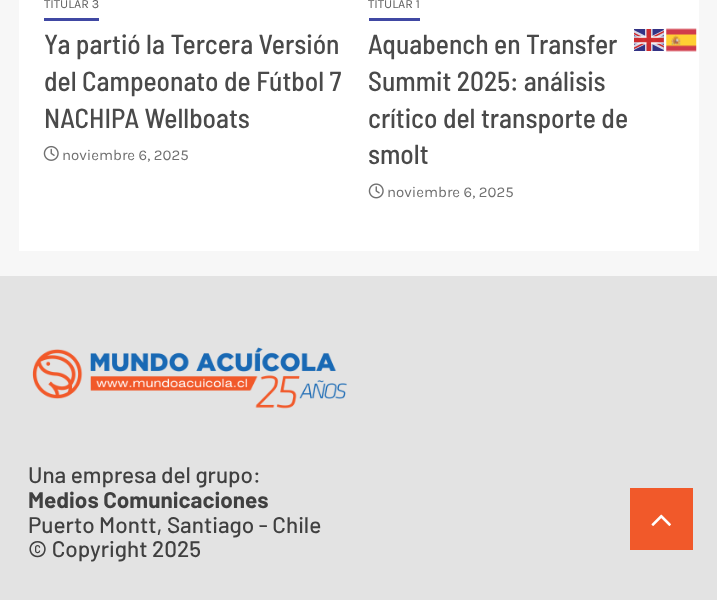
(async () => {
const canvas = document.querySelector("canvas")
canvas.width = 717
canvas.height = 600
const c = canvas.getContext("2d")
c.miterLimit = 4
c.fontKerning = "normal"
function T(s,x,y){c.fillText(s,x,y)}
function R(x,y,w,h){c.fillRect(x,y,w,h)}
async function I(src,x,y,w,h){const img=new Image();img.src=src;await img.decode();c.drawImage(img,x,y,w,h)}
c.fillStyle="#f7f7f7"
R(0,0,717,600)
c.fillStyle="#fff"
R(19,0,680,251)
c.fillStyle="#4048a3"
R(44,18,55,3)
c.font="12.5px Karla"
c.fillStyle="#606060"
T("TITULAR 3",44,8)
c.font="500 27.5px Barlow Semi Condensed"
c.fillStyle="#4a4a4a"
T("Ya partió la Tercera Versión",44,54)
T("del Campeonato de Fútbol 7",44,91)
T("NACHIPA Wellboats",44,128)
await I("1.png",43,145,16,16)
c.font="15px Karla"
c.fillStyle="#707070"
T("noviembre 6, 2025",62,160)
c.fillStyle="#4048a3"
R(369,18,51,3)
c.font="12.5px Karla"
c.fillStyle="#606060"
T("TITULAR 1",368,8)
c.font="500 27.5px Barlow Semi Condensed"
c.fillStyle="#4a4a4a"
T("Aquabench en Transfer",368,54)
T("Summit 2025: análisis",368,91)
T("crítico del transporte de",368,128)
T("smolt",368,164)
await I("2.png",368,183,16,16)
c.font="15px Karla"
c.fillStyle="#707070"
T("noviembre 6, 2025",387,197)
c.fillStyle="#e3e3e3"
R(0,276,717,324)
await I("3.png",32,347,315,62)
c.font="500 22.5px Barlow"
c.fillStyle="#404040"
T("Una empresa del grupo:",28,483)
c.font="bold 22.5px Barlow"
T("Medios Comunicaciones",28,508)
c.font="500 22.5px Barlow"
T("Puerto Montt, Santiago - Chile",28,533)
T("© Copyright 2025",28,557)
await I("4.png",634,29,30,22)
await I("5.png",666,28,31,24)
c.fillStyle="#f1592a"
R(630,488,63,62)
await I("6.png",651,514,20,12)
})()
